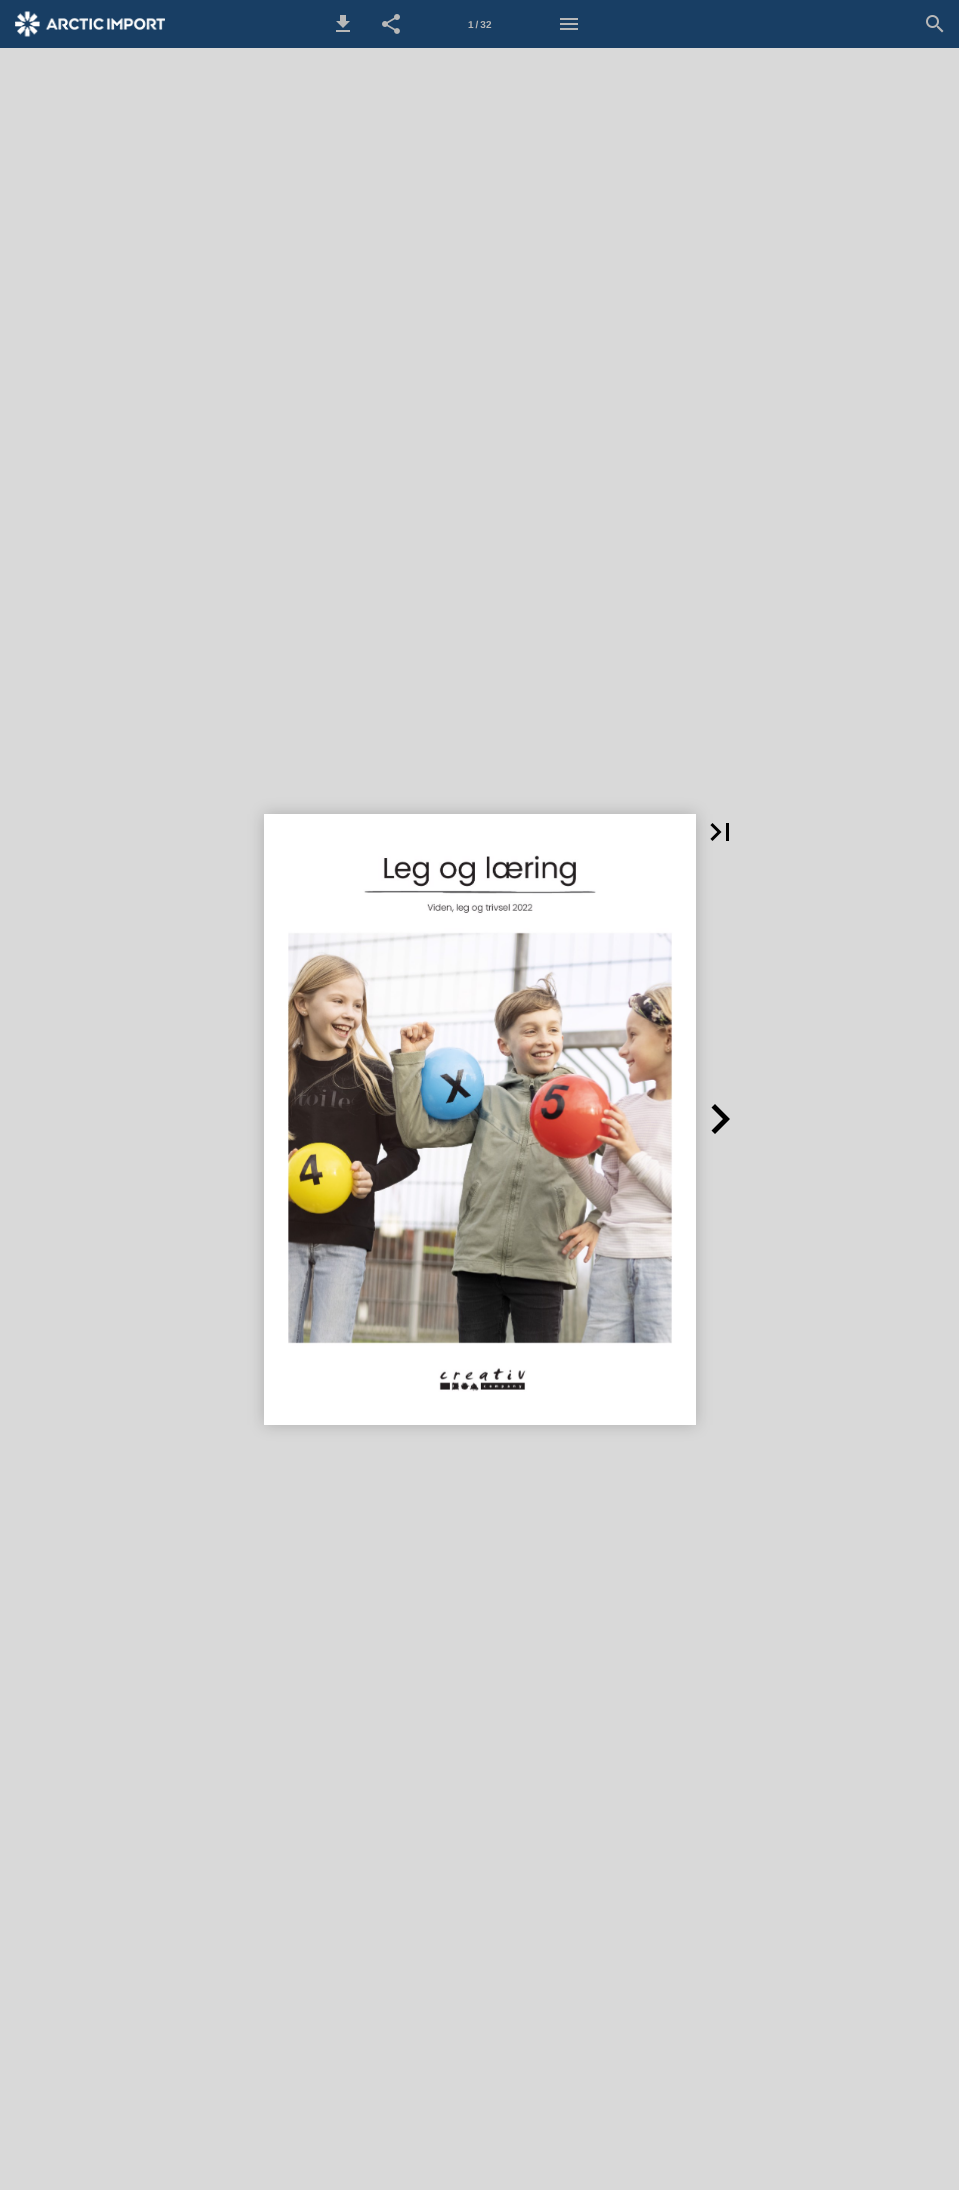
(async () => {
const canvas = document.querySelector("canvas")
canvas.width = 959
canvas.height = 2190
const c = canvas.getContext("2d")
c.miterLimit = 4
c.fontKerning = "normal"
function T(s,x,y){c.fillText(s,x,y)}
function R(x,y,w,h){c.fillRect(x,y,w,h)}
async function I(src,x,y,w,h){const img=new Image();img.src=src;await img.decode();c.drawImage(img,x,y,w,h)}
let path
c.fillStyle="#d9d9d9"
R(0,0,959,2190)
c.fillStyle="#183e64"
R(0,0,959,48)
await I("1.png",15,11,150,26)
await I("2.png",336,15,14,17)
await I("3.png",382,14,18,20)
c.font="bold 10px Liberation Sans"
c.fillStyle="#b8b8b8"
T("1 / 32",468,28)
await I("4.png",560,18,18,12)
await I("5.png",926,15,18,18)
c.fillStyle="#00000033"
c.filter="blur(8px)"
c.beginPath()
c.rect(264,814,432,611)
c.fill()
c.filter="none"
c.fillStyle="#fff"
R(264,814,432,611)
await I("6.png",287,855,386,537)
await I("7.png",710,823,19,18)
c.fillStyle="#000"
path = new Path2D("M715 1104l-3.5 3.5l11.5 11.5l-11.5 11.5l3.5 3.5l15-15z")
c.fill(path)
})()
